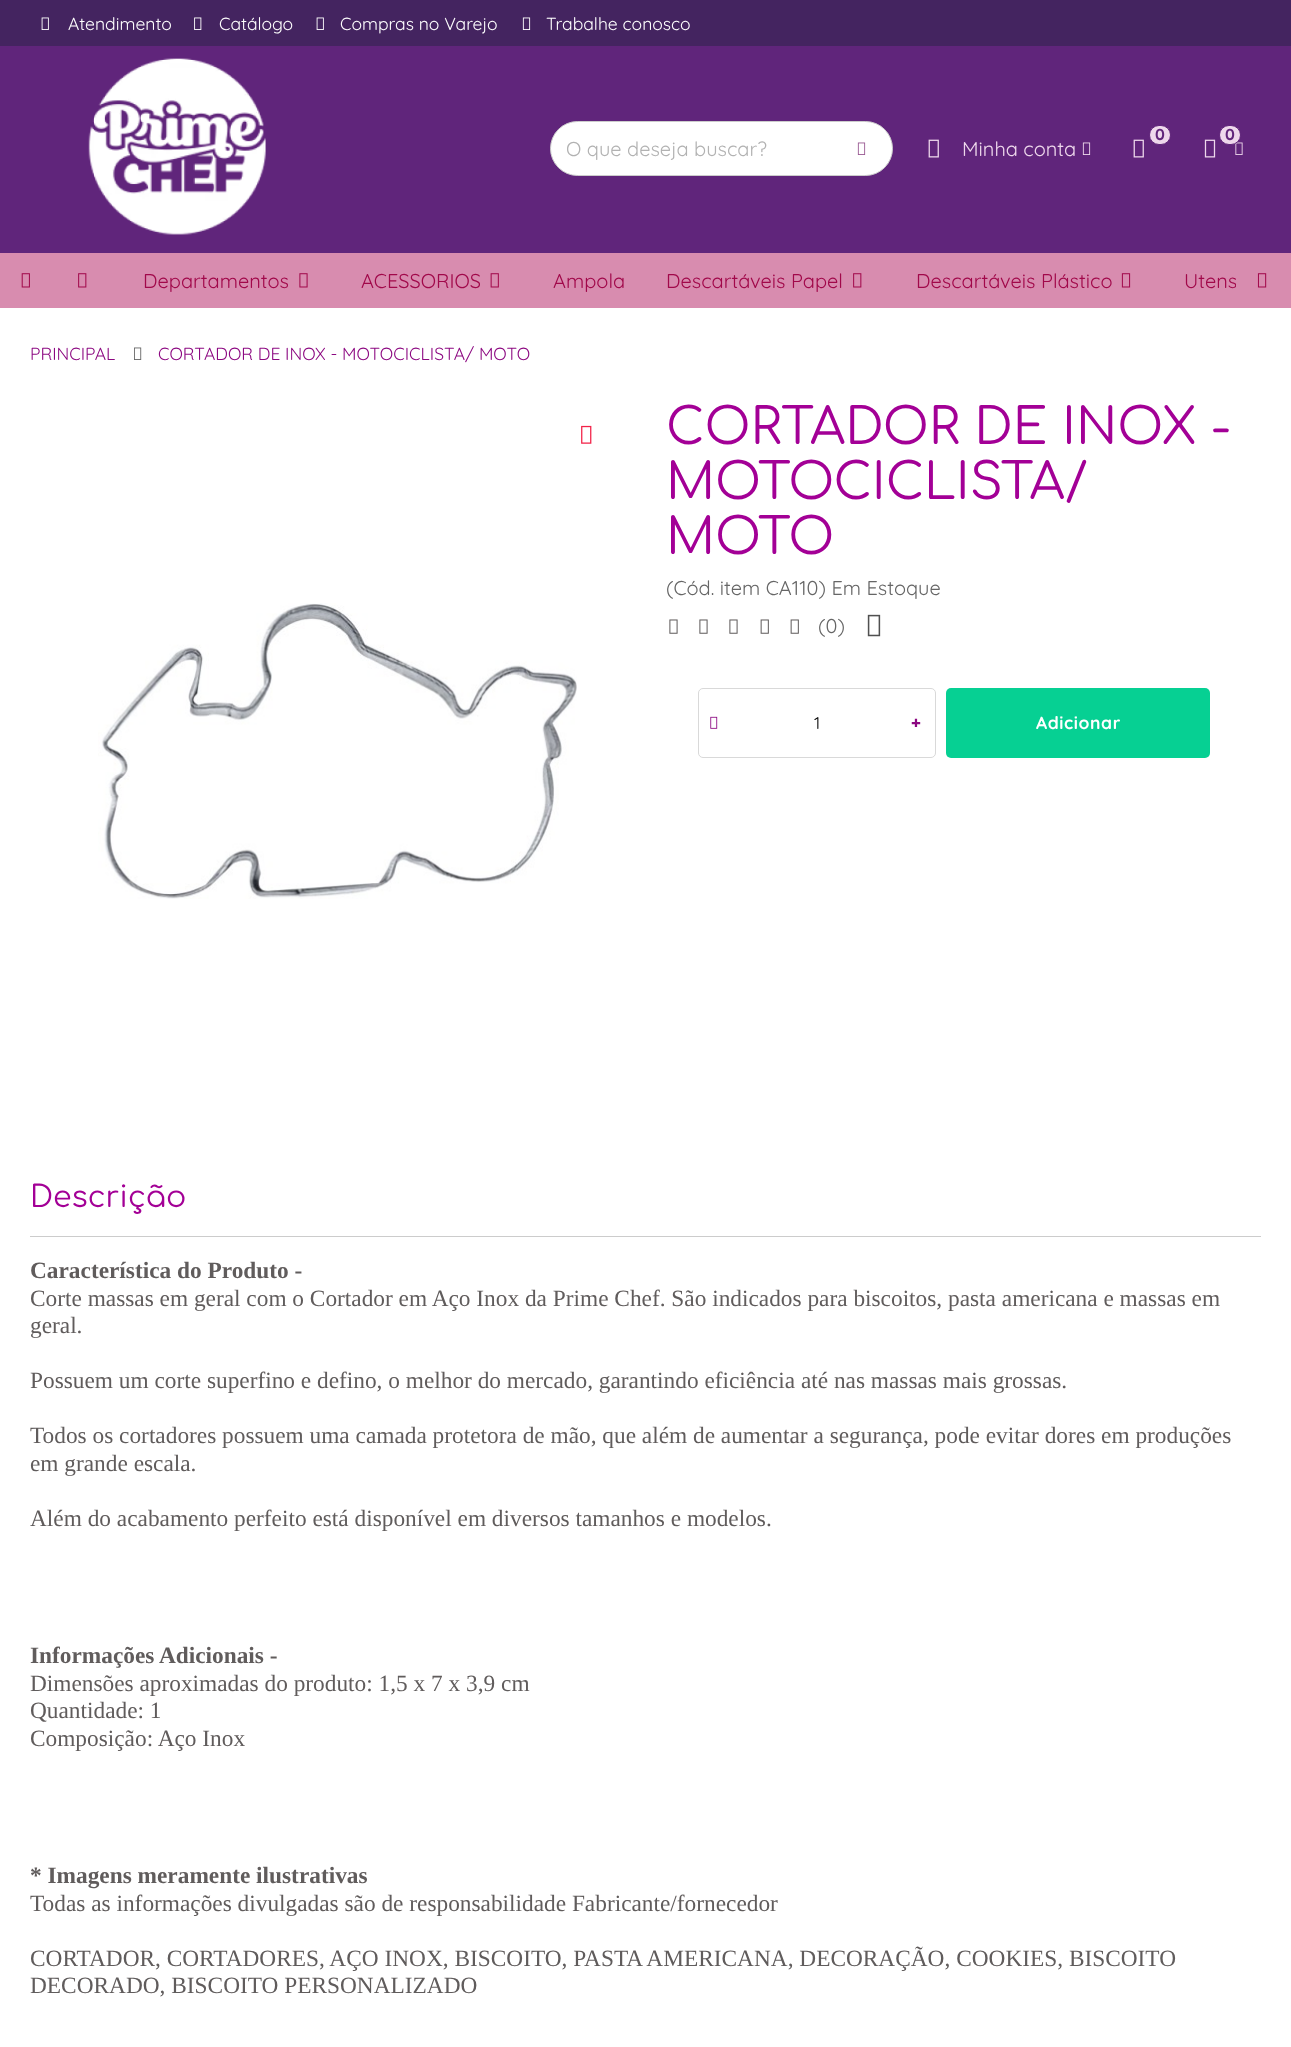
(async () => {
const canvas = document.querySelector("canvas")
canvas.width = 1291
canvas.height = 2047
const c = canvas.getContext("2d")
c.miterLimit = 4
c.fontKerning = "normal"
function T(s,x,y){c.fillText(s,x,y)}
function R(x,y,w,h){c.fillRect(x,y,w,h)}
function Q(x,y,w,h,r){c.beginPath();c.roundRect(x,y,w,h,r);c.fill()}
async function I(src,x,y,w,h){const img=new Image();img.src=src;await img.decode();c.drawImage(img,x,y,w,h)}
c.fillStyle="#fff"
R(0,0,1291,2047)
c.fillStyle="#442460"
R(0,0,1291,46)
await I("1.png",41,17,8,13)
c.font="17.5px Quicksand"
c.fillStyle="#fff"
T("Atendimento",68,30)
await I("2.png",194,17,8,13)
T("Catálogo",219,30)
await I("1.png",316,17,8,13)
T("Compras no Varejo",340,30)
await I("3.png",522,17,9,13)
T("Trabalhe conosco",546,30)
c.fillStyle="#60257b"
R(0,46,1291,207)
await I("4.png",88,58,178,177)
c.fillStyle="#fff"
c.beginPath()
c.roundRect(550.5,121.5,342,54,27)
c.fill()
c.strokeStyle="#ccc"
c.stroke()
c.font="20px Quicksand"
c.fillStyle="#b2b2b2"
T("O que deseja buscar?",566,156)
await I("5.png",857,142,9,13)
c.fillStyle="#eed8ec"
c.beginPath()
c.roundRect(1149.5,125.5,21,19,9.5)
c.fill()
c.strokeStyle="#60257b"
c.stroke()
c.font="bold 16px Quicksand"
c.fillStyle="#60257b"
T("0",1155,140)
await I("6.png",1133,139,11,19)
await I("8.png",1235,142,8,13)
c.fillStyle="#eed8ec"
c.beginPath()
c.roundRect(1219.5,125.5,21,19,9.5)
c.fill()
c.stroke()
c.fillStyle="#60257b"
T("0",1225,140)
await I("7.png",1204,139,12,19)
await I("6.png",928,139,11,19)
c.font="20px Quicksand"
c.fillStyle="#eed8ec"
T("Minha conta",962,156)
await I("9.png",1082,142,9,13)
c.fillStyle="#d88caf"
R(0,253,1291,55)
await I("10.png",21,273,9,15)
await I("11.png",78,273,9,15)
c.fillStyle="#a1084a"
T("Departamentos",143,288)
await I("12.png",299,273,9,15)
T("ACESSORIOS",361,288)
await I("13.png",490,273,9,15)
T("Ampola",553,288)
T("Descartáveis Papel",666,288)
await I("11.png",853,273,9,15)
T("Descartáveis Plástico",916,288)
await I("14.png",1121,273,10,15)
c.save()
c.beginPath()
c.rect(55,253,1181,55)
c.clip()
T("Utens",1184,288)
c.restore()
await I("15.png",1257,273,10,15)
c.font="17.5px Quicksand"
c.fillStyle="#8c0881"
T("PRINCIPAL",30,360)
await I("16.png",134,347,8,13)
T("CORTADOR DE INOX - MOTOCICLISTA/ MOTO",158,360)
await I("17.png",581,425,11,19)
await I("18.png",98,603,479,296)
c.font="50px Comfortaa"
c.fillStyle="#a30096"
T("CORTADOR DE INOX -",666,444)
T("MOTOCICLISTA/",666,499)
T("MOTO",666,554)
c.font="20px Quicksand"
c.fillStyle="#666"
T("(Cód. item CA110) Em Estoque",666,595)
await I("19.png",669,619,9,15)
await I("19.png",699,619,9,15)
await I("19.png",729,619,9,15)
await I("20.png",760,619,9,15)
await I("20.png",790,619,9,15)
T("(0)",818,633)
await I("21.png",867,614,14,23)
c.beginPath()
c.roundRect(698.5,688.5,237,69,4.5)
c.strokeStyle="#d9d9d9"
c.stroke()
await I("22.png",710,716,8,13)
c.font="17px Quicksand"
c.fillStyle="#000"
T("1",814,729)
c.font="900 17px Noto Sans"
c.fillStyle="#8c0881"
T("+",911,729)
c.fillStyle="#06d093"
Q(946,688,264,70,5)
c.letterSpacing="0.6px"
c.font="bold 17.5px Quicksand"
c.fillStyle="#fff"
T("Adicionar",1036,729)
c.fillStyle="#ccc"
R(30,1236,1231,1)
c.letterSpacing="0px"
c.font="30px Comfortaa"
c.fillStyle="#a30096"
T("Descrição",30,1207)
c.font="bold 23.33px Liberation Serif"
c.fillStyle="#605c5c"
T("Característica do Produto -",30,1278)
c.font="23.33px Liberation Serif"
T("Corte massas em geral com o Cortador em Aço Inox da Prime Chef. São indicados para biscoitos, pasta americana e massas em",30,1306)
T("geral.",30,1333)
T("Possuem um corte superfino e defino, o melhor do mercado, garantindo eficiência até nas massas mais grossas.",30,1388)
T("Todos os cortadores possuem uma camada protetora de mão, que além de aumentar a segurança, pode evitar dores em produções",30,1443)
T("em grande escala.",30,1471)
T("Além do acabamento perfeito está disponível em diversos tamanhos e modelos.",30,1526)
c.font="bold 23.33px Liberation Serif"
T("Informações Adicionais -",30,1663)
c.font="23.33px Liberation Serif"
T("Dimensões aproximadas do produto: 1,5 x 7 x 3,9 cm",30,1691)
T("Quantidade: 1",30,1718)
T("Composição: Aço Inox",30,1746)
c.font="bold 23.33px Liberation Serif"
T("* Imagens meramente ilustrativas",30,1883)
c.font="23.33px Liberation Serif"
T("Todas as informações divulgadas são de responsabilidade Fabricante/fornecedor",30,1911)
T("CORTADOR, CORTADORES, AÇO INOX, BISCOITO, PASTA AMERICANA, DECORAÇÃO, COOKIES, BISCOITO",30,1966)
T("DECORADO, BISCOITO PERSONALIZADO",30,1993)
})()
